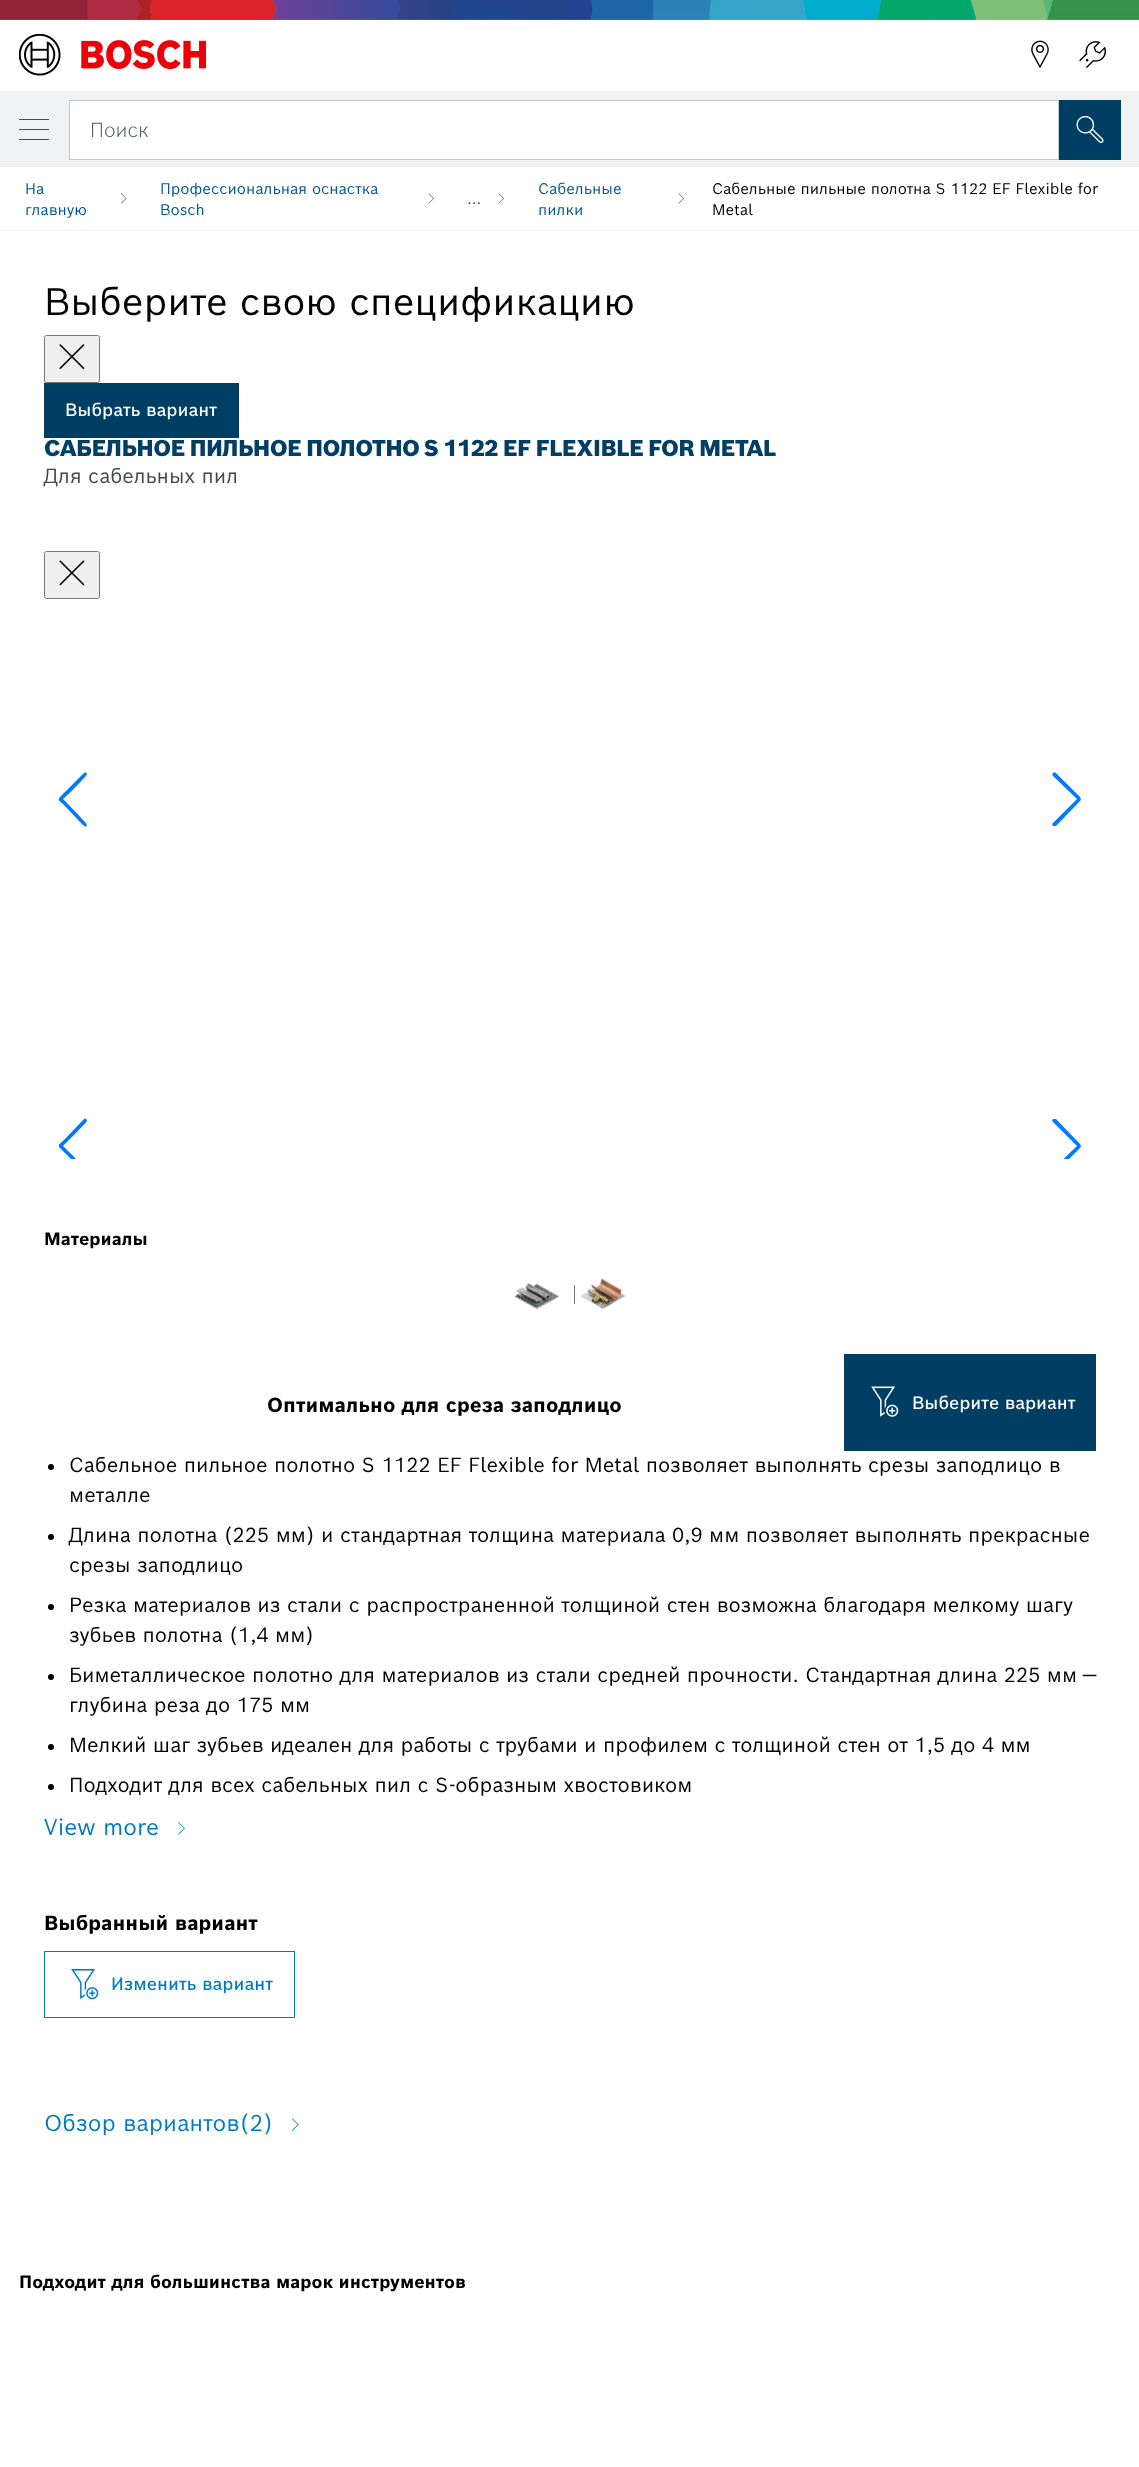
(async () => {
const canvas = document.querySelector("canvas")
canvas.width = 1139
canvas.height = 2467
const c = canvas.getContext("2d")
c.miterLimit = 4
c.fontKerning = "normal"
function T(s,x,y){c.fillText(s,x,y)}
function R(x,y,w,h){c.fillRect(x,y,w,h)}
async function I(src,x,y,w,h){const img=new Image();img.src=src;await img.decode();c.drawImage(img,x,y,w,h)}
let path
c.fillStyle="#fff"
R(0,0,1139,2467)
await I("1.png",0,0,1139,20)
c.fillStyle="#eff1f2"
R(0,91,1139,75)
c.fillStyle="#4d4d4d"
R(19,119,30,1)
R(19,129,30,1)
R(19,139,30,1)
await I("2.png",19,34,187,42)
await I("3.png",1031,40,18,28)
await I("4.png",1079,41,28,27)
c.fillStyle="#fff"
c.beginPath()
c.rect(69.5,100.5,989,59)
c.fill()
c.strokeStyle="#c1c7cc"
c.stroke()
c.font="300 20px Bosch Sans"
c.fillStyle="#595e62"
T("Поиск",90,137)
c.fillStyle="#003e64"
R(1059,100,62,60)
await I("5.png",1076,116,28,27)
c.fillStyle="#efeff0"
R(0,166,1139,1)
R(0,230,1139,1)
c.font="15px Bosch Sans"
c.fillStyle="#005691"
T("На",25,194)
await I("6.png",121,193,6,11)
T("главную",25,215)
T("Профессиональная оснастка",160,194)
await I("7.png",428,193,6,11)
T("Bosch",160,215)
T("...",467,204)
await I("7.png",498,193,6,11)
T("Сабельные",538,194)
await I("7.png",678,193,6,11)
T("пилки",538,215)
c.fillStyle="#000"
T("Сабельные пильные полотна S 1122 EF Flexible for",712,194)
T("Metal",712,215)
c.font="37.5px Bosch Sans"
T("Выберите свою спецификацию",44,315)
c.fillStyle="#efefef"
c.beginPath()
c.roundRect(44.5,335.5,55,47,2)
c.fill()
c.strokeStyle="#767676"
c.stroke()
await I("8.png",59,344,26,26)
c.fillStyle="#003e64"
R(44,383,195,55)
c.font="500 17.5px Bosch Sans"
c.fillStyle="#fff"
T("Выбрать вариант",65,416)
c.letterSpacing="-0.68px"
c.font="900 22.5px Bosch Sans"
c.fillStyle="#003e64"
T("САБЕЛЬНОЕ ПИЛЬНОЕ ПОЛОТНО S 1122 EF FLEXIBLE FOR METAL",44,456)
c.letterSpacing="0px"
c.font="20px Bosch Sans"
c.fillStyle="#43464a"
T("Для сабельных пил",44,483)
c.fillStyle="#efefef"
c.beginPath()
c.roundRect(44.5,551.5,55,47,2)
c.fill()
c.stroke()
await I("9.png",59,560,26,26)
c.fillStyle="#007aff"
path = new Path2D("M84 773c1-1 3 0 3 1c0 2-21 23-24 25c3 3 24 24 24 26c-1 4-5-1-7-3l-16-17c-7-6-7-5 0-12z")
c.fill(path)
path = new Path2D("M1053 826c-1-1-1-2 0-3l24-24l-24-23c-1-1-1-2 0-3c1-1 2-1 3 0l24 24l1 2l-1 2l-24 25c-1 0-2 0-3 0z")
c.fill(path)
c.save()
c.beginPath()
c.rect(44,1039,1052,120)
c.clip()
path = new Path2D("M84 1119c1-1 3 0 3 2c0 1-21 22-24 25c3 3 24 23 24 25c-1 4-5-1-7-3l-16-16c-7-7-7-6 0-12z")
c.fill(path)
path = new Path2D("M1053 1172c-1-1-1-2 0-3l24-23l-24-24c-1-1-1-2 0-3c1 0 2 0 3 0l24 25l1 2l-1 2l-24 24c-1 1-2 1-3 0z")
c.fill(path)
c.restore()
c.font="bold 17.5px Bosch Sans"
c.fillStyle="#000"
T("Материалы",44,1245)
await I("10.png",515,1283,44,26)
c.fillStyle="#71767c"
R(574,1285,1,19)
await I("11.png",581,1278,44,31)
c.font="bold 20px Bosch Sans"
c.fillStyle="#000"
T("Оптимально для среза заподлицо",267,1412)
c.fillStyle="#003e64"
R(844,1354,252,97)
await I("12.png",871,1386,28,31)
c.font="500 17.5px Bosch Sans"
c.fillStyle="#fff"
T("Выберите вариант",912,1409)
c.fillStyle="#000"
c.beginPath()
c.arc(51,1467,3,0,7)
c.fill()
c.font="20px Bosch Sans"
T("Сабельное пильное полотно S 1122 EF Flexible for Metal позволяет выполнять срезы заподлицо в",69,1472)
T("металле",69,1502)
c.beginPath()
c.arc(51,1537,3,0,7)
c.fill()
T("Длина полотна (225 мм) и стандартная толщина материала 0,9 мм позволяет выполнять прекрасные",69,1542)
T("срезы заподлицо",69,1572)
c.beginPath()
c.arc(51,1607,3,0,7)
c.fill()
T("Резка материалов из стали с распространенной толщиной стен возможна благодаря мелкому шагу",69,1612)
T("зубьев полотна (1,4 мм)",69,1642)
c.beginPath()
c.arc(51,1677,3,0,7)
c.fill()
T("Биметаллическое полотно для материалов из стали средней прочности. Стандартная длина 225 мм —",69,1682)
T("глубина реза до 175 мм",69,1712)
c.beginPath()
c.arc(51,1747,3,0,7)
c.fill()
T("Мелкий шаг зубьев идеален для работы с трубами и профилем с толщиной стен от 1,5 до 4 мм",69,1752)
c.beginPath()
c.arc(51,1787,3,0,7)
c.fill()
T("Подходит для всех сабельных пил с S-образным хвостовиком",69,1792)
c.font="22.5px Bosch Sans"
c.fillStyle="#007bc0"
T("View more",44,1835)
await I("13.png",178,1822,7,13)
c.font="bold 20px Bosch Sans"
c.fillStyle="#000"
T("Выбранный вариант",44,1930)
c.strokeStyle="#007bc0"
c.strokeRect(44.5,1951.5,250,66)
await I("14.png",71,1969,28,31)
c.font="500 17.5px Bosch Sans"
c.fillStyle="#007bc0"
T("Изменить вариант",111,1990)
c.font="22.5px Bosch Sans"
T("Обзор вариантов(2)",44,2131)
await I("15.png",291,2118,8,13)
c.font="bold 17.5px Bosch Sans"
c.fillStyle="#000"
T("Подходит для большинства марок инструментов",19,2288)
})()
